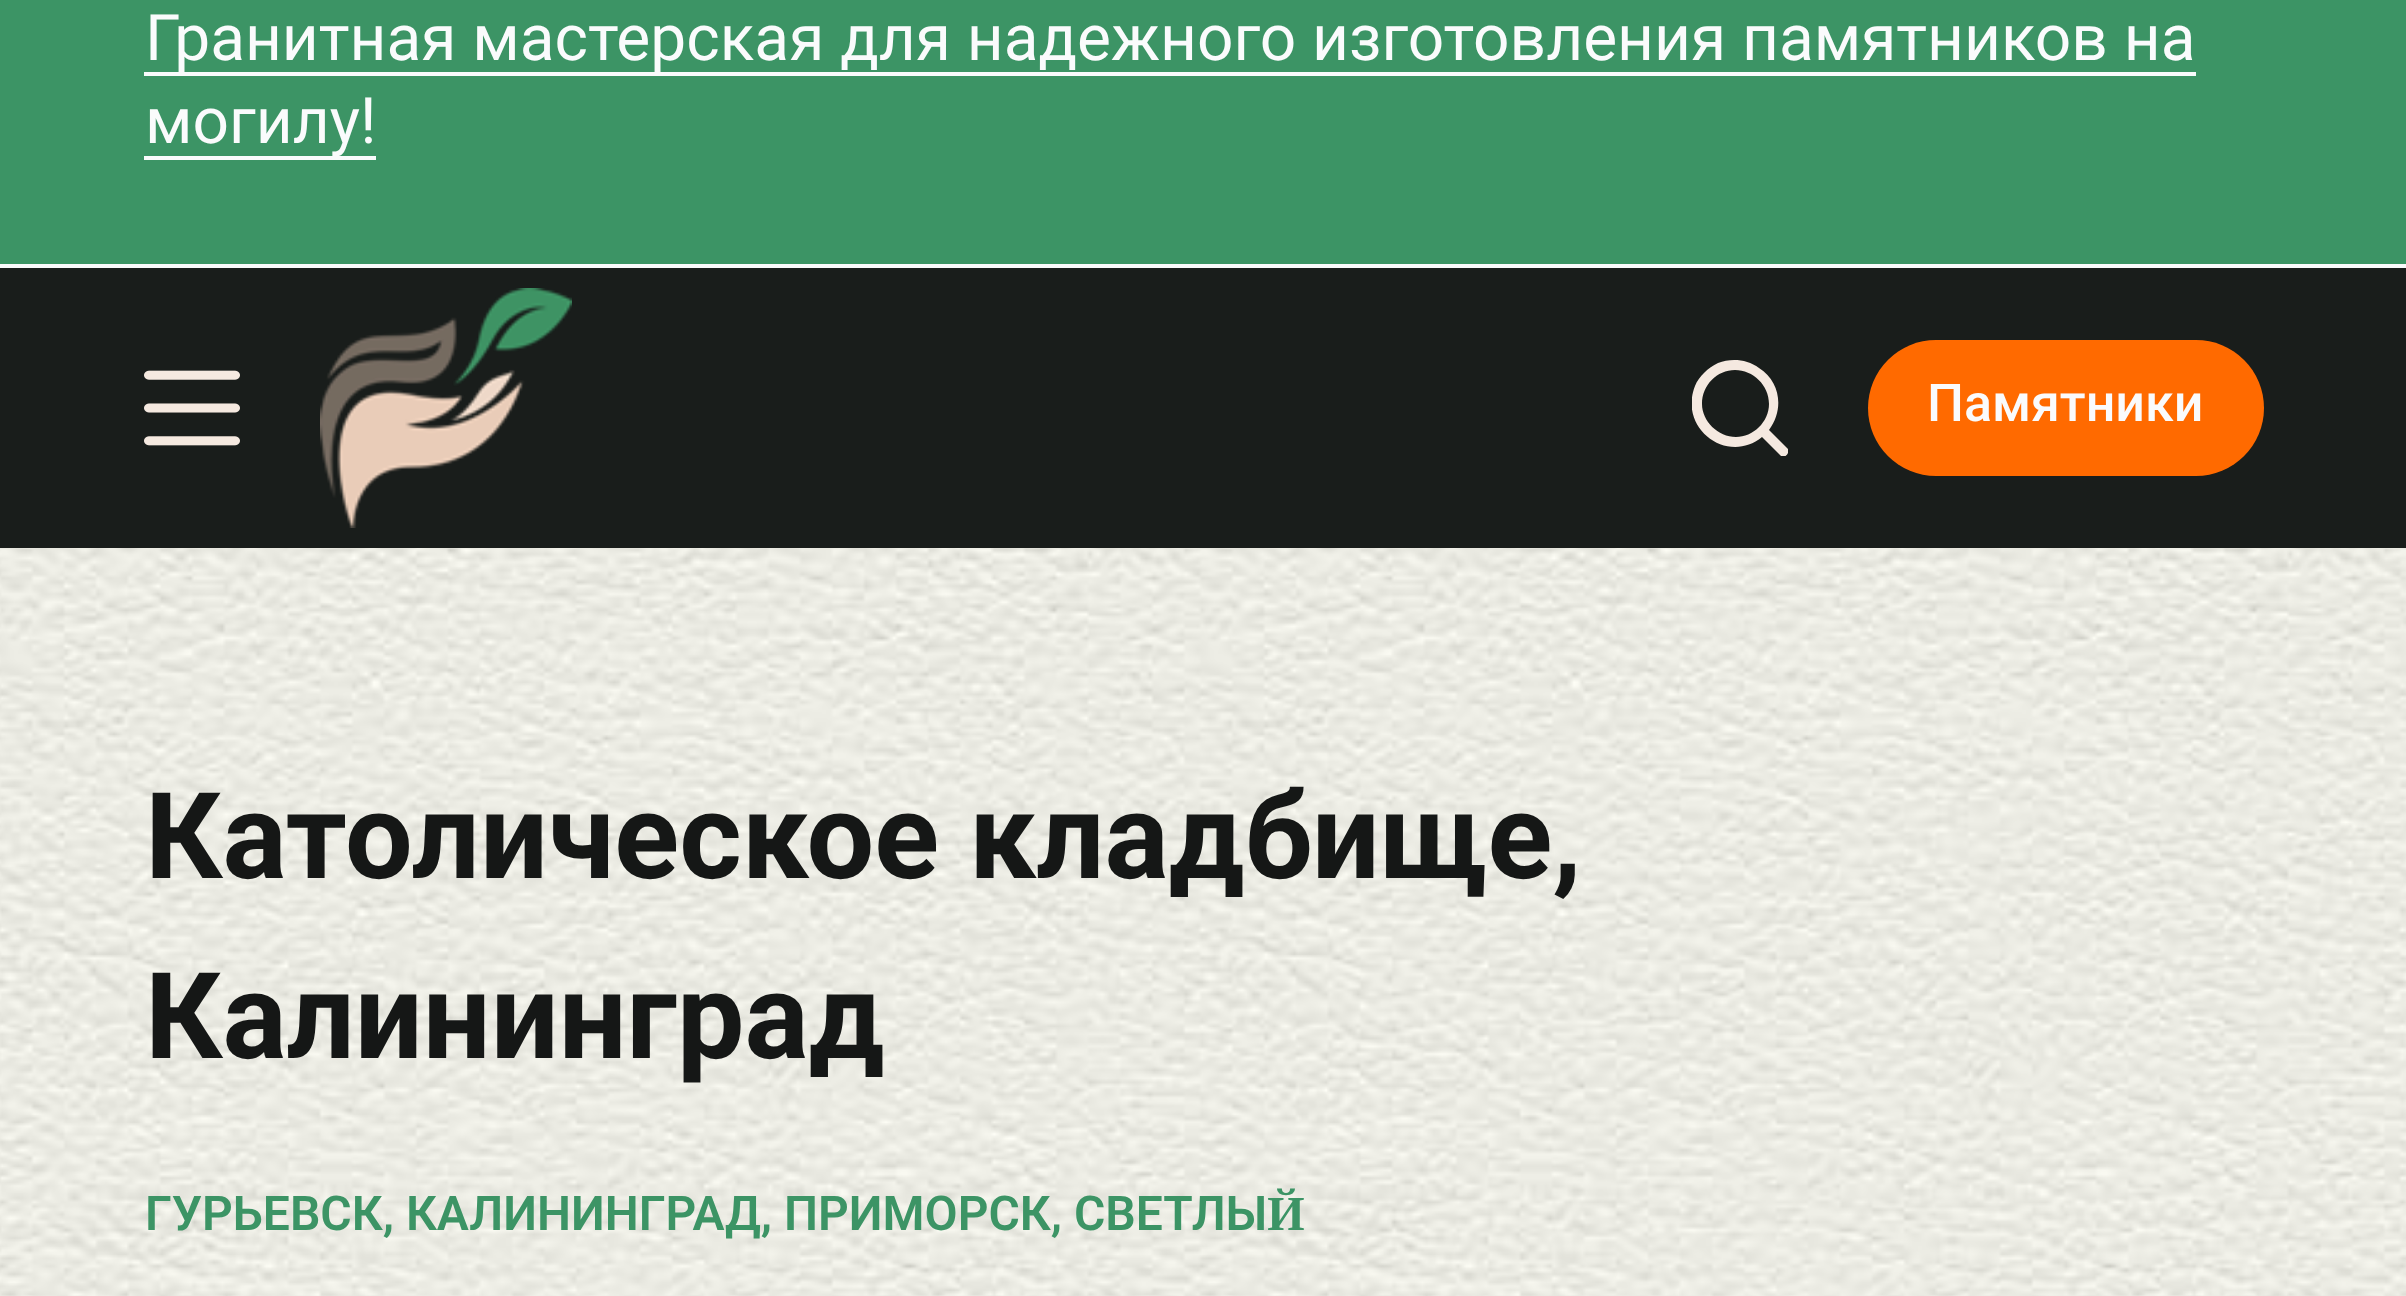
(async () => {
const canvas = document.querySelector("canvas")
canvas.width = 2406
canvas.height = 1296
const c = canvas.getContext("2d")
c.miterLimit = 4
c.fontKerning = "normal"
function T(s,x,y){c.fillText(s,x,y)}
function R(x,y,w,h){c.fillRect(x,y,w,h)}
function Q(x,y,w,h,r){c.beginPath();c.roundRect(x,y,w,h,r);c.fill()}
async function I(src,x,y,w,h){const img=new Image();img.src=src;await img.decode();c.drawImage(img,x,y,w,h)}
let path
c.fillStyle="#fff"
R(0,0,2406,1296)
await I("1.png",0,548,2406,748)
c.fillStyle="#3c9465"
R(0,0,2406,264)
c.fillStyle="#fafbfc"
R(0,264,2406,4)
R(144,72,2052,4)
c.font="64px Roboto"
T("Гранитная мастерская для надежного изготовления памятников на",145,60)
R(144,156,232,4)
T("могилу!",145,143)
c.fillStyle="#191d1b"
R(0,268,2406,280)
await I("2.png",144,370,96,76)
await I("3.png",320,288,252,240)
c.save()
c.beginPath()
c.rect(1692,360,96,96)
c.clip()
c.fillStyle="#f5e9e0"
path = new Path2D("M1787 448l-18-18c15-20 12-48-10-62c-12-9-28-10-41-5c-10 5-19 13-23 23c-17 43 33 79 67 51l19 19c5 3 10-5 6-8zm-85-44c0-19 15-34 33-34c18 0 34 15 34 34c0 18-16 33-33 33c-18 0-34-16-34-33z")
c.fill(path)
c.restore()
c.fillStyle="#ff6a00"
Q(1868,340,396,136,68)
c.font="500 52px Roboto"
c.fillStyle="#fafbfc"
T("Памятники",1927,421)
c.font="bold 120px Roboto"
c.fillStyle="#151716"
T("Католическое кладбище,",145,878)
T("Калининград",145,1058)
c.font="600 48px Roboto"
c.fillStyle="#3c9465"
T("ГУРЬЕВСК, КАЛИНИНГРАД, ПРИМОРСК, СВЕТЛЫЙ",145,1230)
})()
